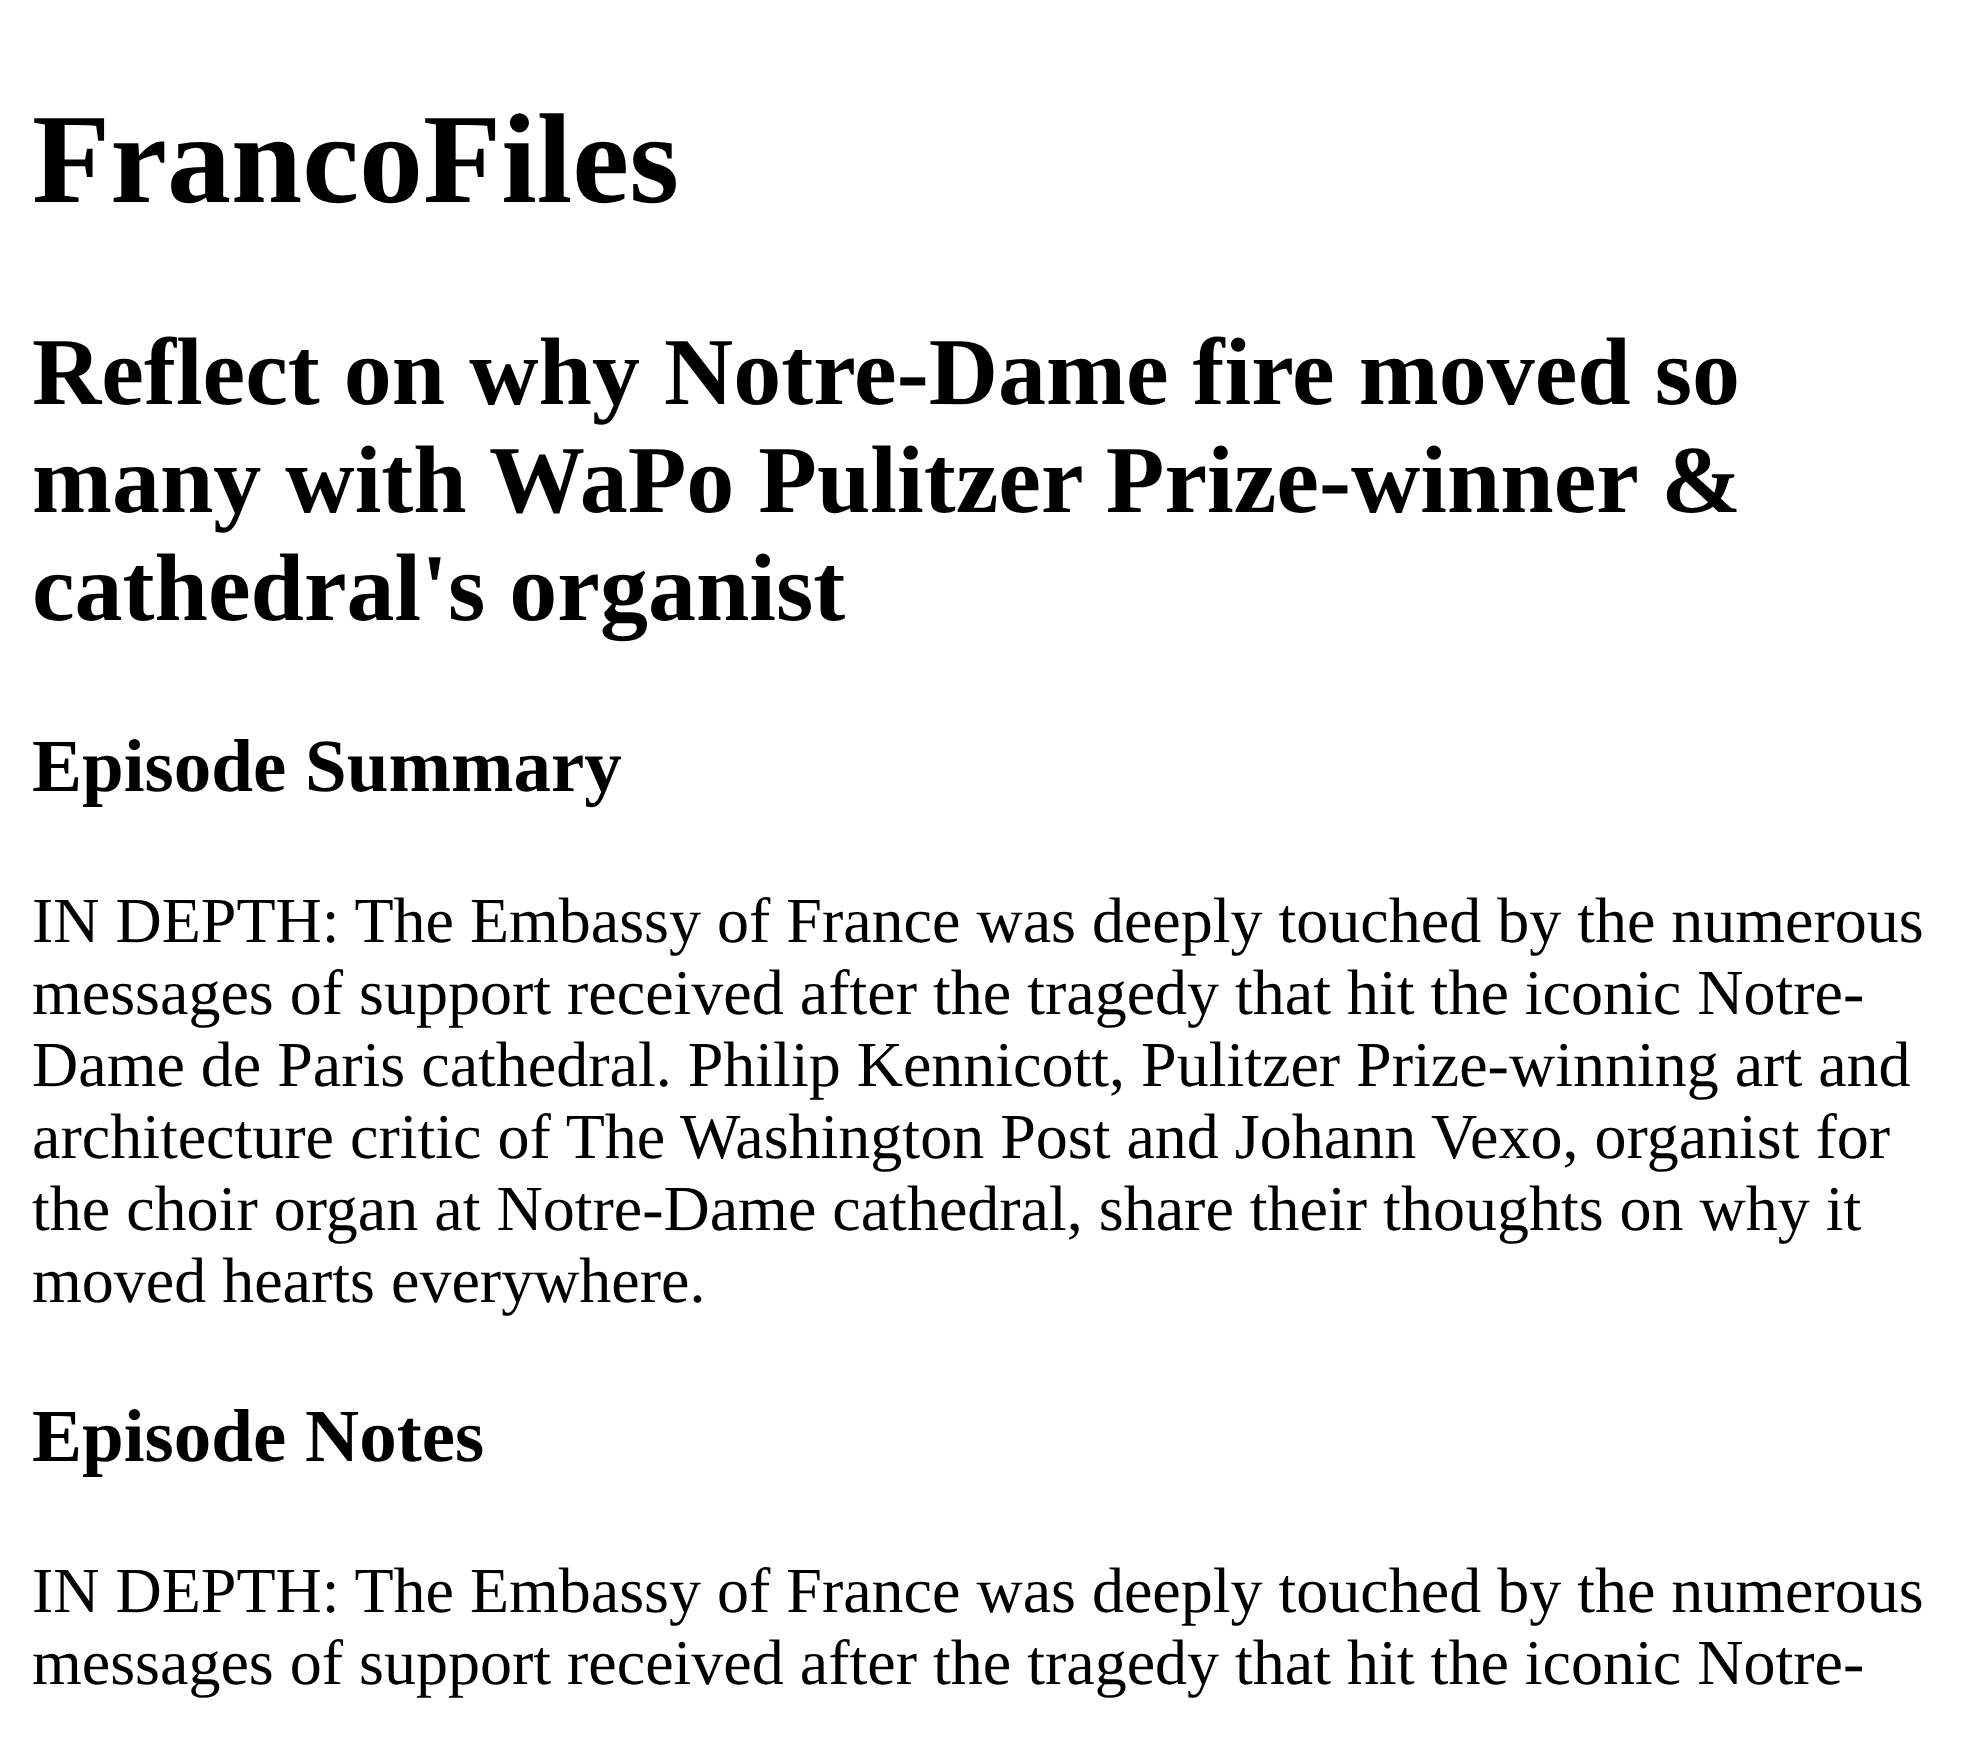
(async () => {
const canvas = document.querySelector("canvas")
canvas.width = 1965
canvas.height = 1742
const c = canvas.getContext("2d")
c.miterLimit = 4
c.fontKerning = "normal"
function T(s,x,y){c.fillText(s,x,y)}
function R(x,y,w,h){c.fillRect(x,y,w,h)}
c.fillStyle="#fff"
R(0,0,1965,1742)
c.font="bold 128px Liberation Serif"
c.fillStyle="#000"
T("FrancoFiles",32,202)
c.font="bold 96px Liberation Serif"
T("Reflect on why Notre-Dame fire moved so",32,404)
T("many with WaPo Pulitzer Prize-winner &",32,512)
T("cathedral's organist",32,620)
c.font="bold 75px Liberation Serif"
T("Episode Summary",32,791)
c.font="64px Liberation Serif"
T("IN DEPTH: The Embassy of France was deeply touched by the numerous",32,942)
T("messages of support received after the tragedy that hit the iconic Notre-",32,1014)
T("Dame de Paris cathedral. Philip Kennicott, Pulitzer Prize-winning art and",32,1086)
T("architecture critic of The Washington Post and Johann Vexo, organist for",32,1158)
T("the choir organ at Notre-Dame cathedral, share their thoughts on why it",32,1230)
T("moved hearts everywhere.",32,1302)
c.font="bold 75px Liberation Serif"
T("Episode Notes",32,1461)
c.font="64px Liberation Serif"
T("IN DEPTH: The Embassy of France was deeply touched by the numerous",32,1612)
T("messages of support received after the tragedy that hit the iconic Notre-",32,1684)
})()
